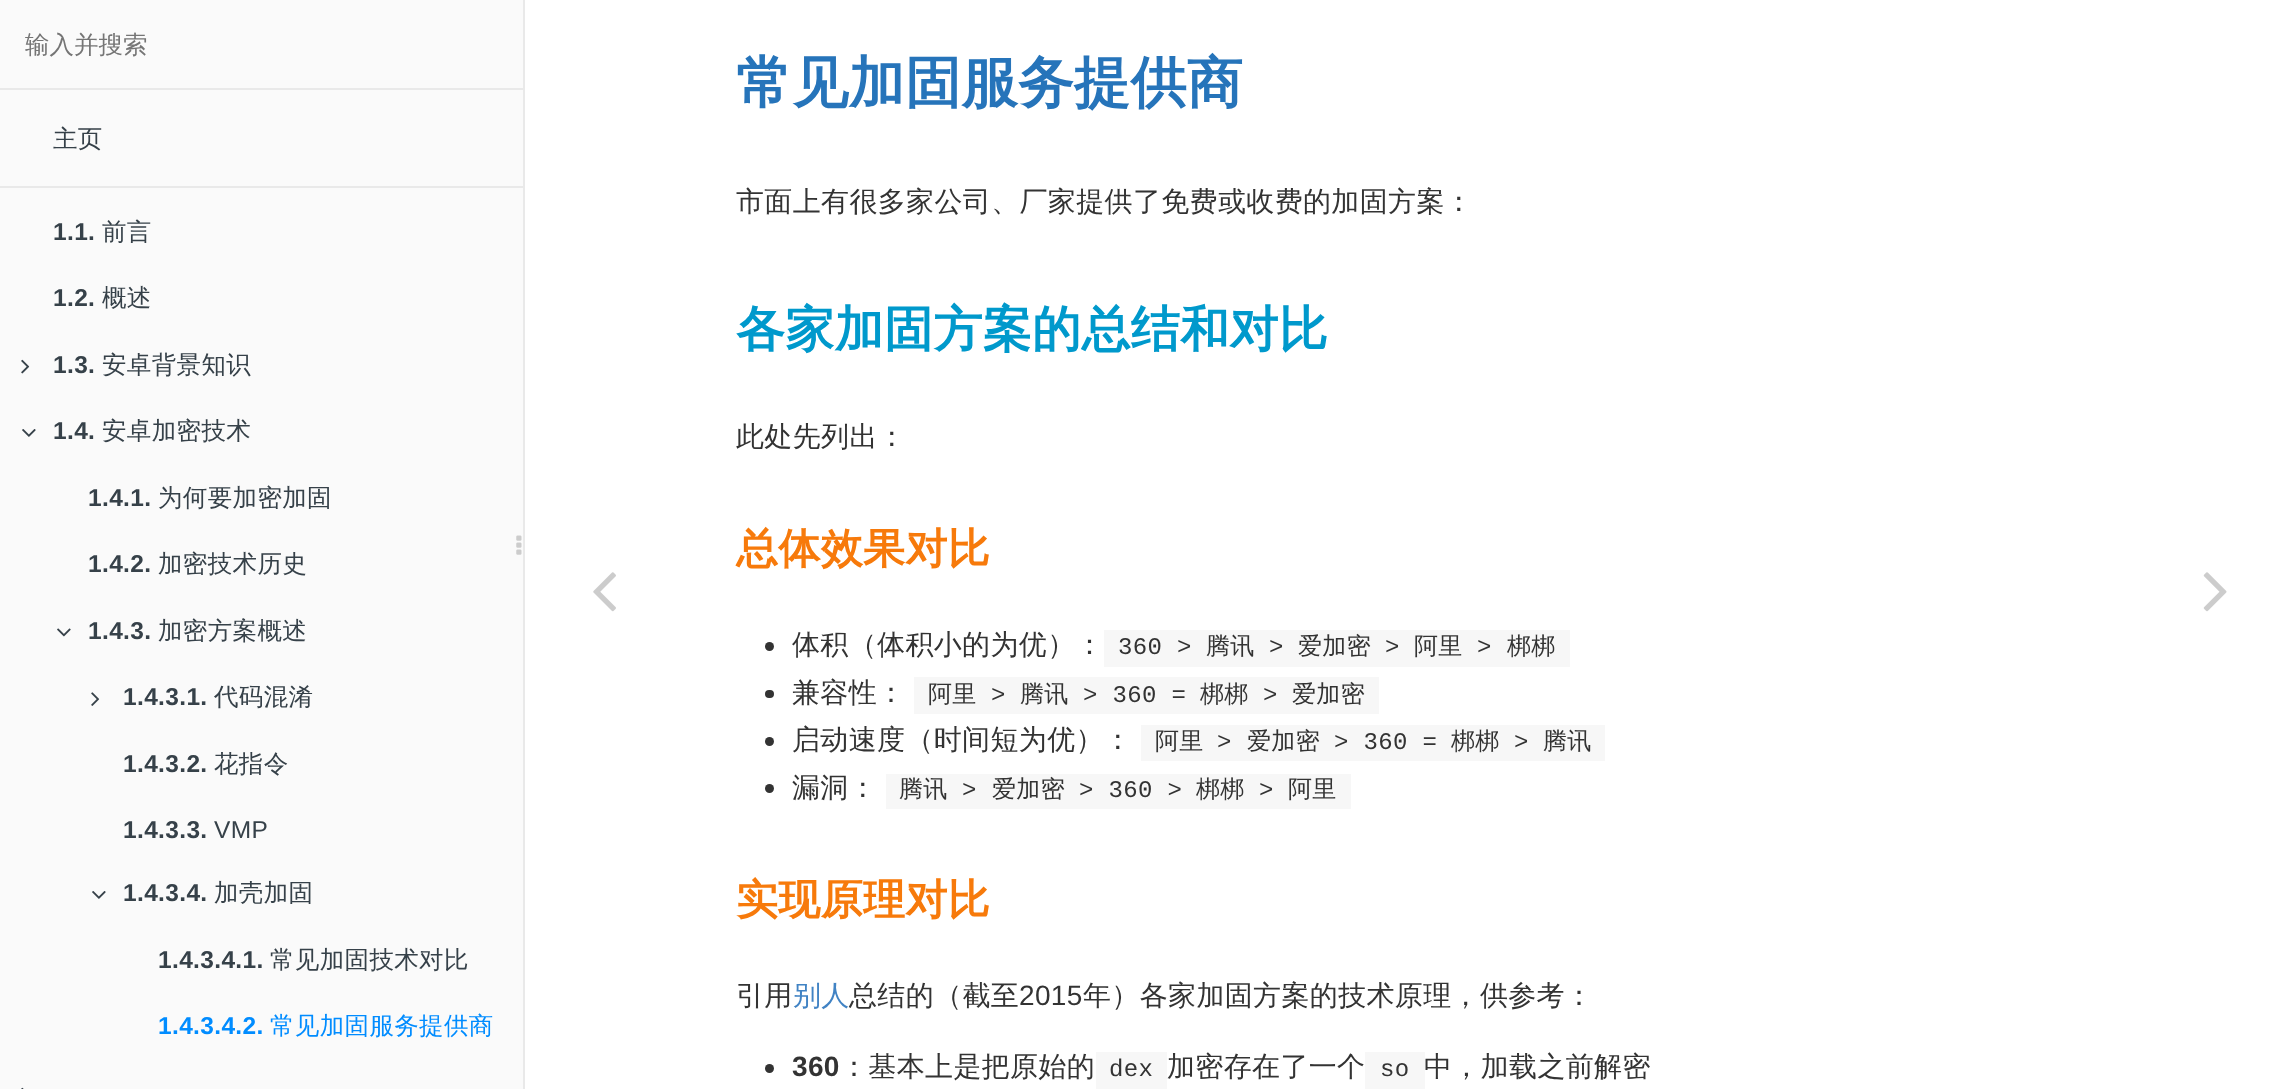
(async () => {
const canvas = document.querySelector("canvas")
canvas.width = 2293
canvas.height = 1089
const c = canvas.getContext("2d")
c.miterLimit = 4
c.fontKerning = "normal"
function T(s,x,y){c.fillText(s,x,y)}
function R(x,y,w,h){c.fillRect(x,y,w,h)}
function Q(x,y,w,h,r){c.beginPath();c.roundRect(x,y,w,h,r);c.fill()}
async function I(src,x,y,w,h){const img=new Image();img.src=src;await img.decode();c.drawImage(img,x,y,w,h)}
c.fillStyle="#fff"
R(0,0,2293,1089)
c.fillStyle="#fafafa"
R(0,0,523,1089)
c.fillStyle="#e9e9e9"
R(523,0,2,1089)
R(0,88,523,2)
c.font="500 24.5px WenQuanYi Zen Hei"
c.fillStyle="#757575"
T("输入并搜索",25,53)
c.letterSpacing="0.35px"
c.fillStyle="#364149"
T("主页",53,147)
c.fillStyle="#e9e9e9"
R(0,186,523,2)
c.font="bold 24.5px Liberation Sans"
c.fillStyle="#364149"
T("1.1.",53,240)
c.font="500 24.5px WenQuanYi Zen Hei"
T("前言",102,240)
c.font="bold 24.5px Liberation Sans"
T("1.2.",53,306)
c.font="500 24.5px WenQuanYi Zen Hei"
T("概述",102,306)
await I("1.png",21,359,9,15)
c.font="bold 24.5px Liberation Sans"
T("1.3.",53,373)
c.font="500 24.5px WenQuanYi Zen Hei"
T("安卓背景知识",102,373)
await I("2.png",22,429,14,8)
c.font="bold 24.5px Liberation Sans"
T("1.4.",53,439)
c.font="500 24.5px WenQuanYi Zen Hei"
T("安卓加密技术",102,439)
c.font="bold 24.5px Liberation Sans"
T("1.4.1.",88,506)
c.font="500 24.5px WenQuanYi Zen Hei"
T("为何要加密加固",158,506)
c.font="bold 24.5px Liberation Sans"
T("1.4.2.",88,572)
c.font="500 24.5px WenQuanYi Zen Hei"
T("加密技术历史",158,572)
await I("3.png",57,628,14,9)
c.font="bold 24.5px Liberation Sans"
T("1.4.3.",88,639)
c.font="500 24.5px WenQuanYi Zen Hei"
T("加密方案概述",158,639)
await I("4.png",91,692,9,14)
c.font="bold 24.5px Liberation Sans"
T("1.4.3.1.",123,705)
c.font="500 24.5px WenQuanYi Zen Hei"
T("代码混淆",214,705)
c.font="bold 24.5px Liberation Sans"
T("1.4.3.2.",123,772)
c.font="500 24.5px WenQuanYi Zen Hei"
T("花指令",214,772)
c.font="bold 24.5px Liberation Sans"
T("1.4.3.3.",123,838)
c.font="24.5px Liberation Sans"
T("VMP",214,838)
await I("2.png",92,891,14,8)
c.font="bold 24.5px Liberation Sans"
T("1.4.3.4.",123,901)
c.font="500 24.5px WenQuanYi Zen Hei"
T("加壳加固",214,901)
c.font="bold 24.5px Liberation Sans"
T("1.4.3.4.1.",158,968)
c.font="500 24.5px WenQuanYi Zen Hei"
T("常见加固技术对比",270,968)
c.font="bold 24.5px Liberation Sans"
c.fillStyle="#008cff"
T("1.4.3.4.2.",158,1034)
c.font="500 24.5px WenQuanYi Zen Hei"
T("常见加固服务提供商",270,1034)
await I("5.png",21,1087,3,2)
await I("6.png",516,535,6,20)
await I("7.png",593,572,23,40)
c.font="bold 56px WenQuanYi Zen Hei"
c.fillStyle="#2674ba"
T("常见加固服务提供商",736,102)
c.font="500 28px WenQuanYi Zen Hei"
c.fillStyle="#333"
T("市面上有很多家公司、厂家提供了免费或收费的加固方案：",736,211)
c.font="bold 49px WenQuanYi Zen Hei"
c.fillStyle="#09c"
T("各家加固方案的总结和对比",736,346)
c.font="500 28px WenQuanYi Zen Hei"
c.fillStyle="#333"
T("此处先列出：",736,446)
c.font="bold 42px WenQuanYi Zen Hei"
c.fillStyle="#f77a0b"
T("总体效果对比",736,563)
c.fillStyle="#333"
c.beginPath()
c.arc(769.5,646.5,4.5,0,7)
c.fill()
c.font="500 28px WenQuanYi Zen Hei"
T("体积（体积小的为优）：",792,654)
c.fillStyle="#f7f7f7"
R(1104,630,466,37)
c.font="24px Liberation Mono"
c.fillStyle="#333"
T("360 >",1118,654)
c.font="500 24px WenQuanYi Zen Hei"
T("腾讯",1206,654)
c.font="24px Liberation Mono"
T(">",1269,654)
c.font="500 24px WenQuanYi Zen Hei"
T("爱加密",1298,654)
c.font="24px Liberation Mono"
T(">",1385,654)
c.font="500 24px WenQuanYi Zen Hei"
T("阿里",1414,654)
c.font="24px Liberation Mono"
T(">",1477,654)
c.font="500 24px WenQuanYi Zen Hei"
T("梆梆",1507,654)
Q(765,690,9,8,4)
c.font="500 28px WenQuanYi Zen Hei"
T("兼容性：",792,702)
c.fillStyle="#f7f7f7"
R(914,677,465,37)
c.font="500 24px WenQuanYi Zen Hei"
c.fillStyle="#333"
T("阿里",928,702)
c.font="24px Liberation Mono"
T(">",991,702)
c.font="500 24px WenQuanYi Zen Hei"
T("腾讯",1020,702)
c.font="24px Liberation Mono"
T("> 360 =",1083,702)
c.font="500 24px WenQuanYi Zen Hei"
T("梆梆",1200,702)
c.font="24px Liberation Mono"
T(">",1263,702)
c.font="500 24px WenQuanYi Zen Hei"
T("爱加密",1292,702)
c.beginPath()
c.arc(769.5,741.5,4.5,0,7)
c.fill()
c.font="500 28px WenQuanYi Zen Hei"
T("启动速度（时间短为优）：",792,749)
c.fillStyle="#f7f7f7"
R(1141,725,464,36)
c.font="500 24px WenQuanYi Zen Hei"
c.fillStyle="#333"
T("阿里",1155,749)
c.font="24px Liberation Mono"
T(">",1217,749)
c.font="500 24px WenQuanYi Zen Hei"
T("爱加密",1247,749)
c.font="24px Liberation Mono"
T("> 360 =",1334,749)
c.font="500 24px WenQuanYi Zen Hei"
T("梆梆",1451,749)
c.font="24px Liberation Mono"
T(">",1514,749)
c.font="500 24px WenQuanYi Zen Hei"
T("腾讯",1543,749)
c.beginPath()
c.arc(769.5,788.5,4.5,0,7)
c.fill()
c.font="500 28px WenQuanYi Zen Hei"
T("漏洞：",792,797)
c.fillStyle="#f7f7f7"
R(886,774,465,35)
c.font="500 24px WenQuanYi Zen Hei"
c.fillStyle="#333"
T("腾讯",899,797)
c.font="24px Liberation Mono"
T(">",962,797)
c.font="500 24px WenQuanYi Zen Hei"
T("爱加密",992,797)
c.font="24px Liberation Mono"
T("> 360 >",1079,797)
c.font="500 24px WenQuanYi Zen Hei"
T("梆梆",1196,797)
c.font="24px Liberation Mono"
T(">",1259,797)
c.font="500 24px WenQuanYi Zen Hei"
T("阿里",1288,797)
c.font="bold 42px WenQuanYi Zen Hei"
c.fillStyle="#f77a0b"
T("实现原理对比",736,914)
c.font="500 28px WenQuanYi Zen Hei"
c.fillStyle="#333"
T("引用",736,1005)
c.fillStyle="#4183c4"
T("别人",793,1005)
c.fillStyle="#333"
T("总结的（截至",849,1005)
c.font="28px Liberation Sans"
T("2015",1019,1005)
c.font="500 28px WenQuanYi Zen Hei"
T("年）各家加固方案的技术原理，供参考：",1083,1005)
c.beginPath()
c.arc(769.5,1068.5,4.5,0,7)
c.fill()
c.font="bold 28px Liberation Sans"
T("360",792,1076)
c.font="500 28px WenQuanYi Zen Hei"
T("：基本上是把原始的",840,1076)
c.fillStyle="#f7f7f7"
R(1096,1052,71,37)
c.font="24px Liberation Mono"
c.fillStyle="#333"
T("dex",1109,1076)
c.font="500 28px WenQuanYi Zen Hei"
T("加密存在了一个",1167,1076)
c.fillStyle="#f7f7f7"
R(1365,1052,60,37)
c.font="24px Liberation Mono"
c.fillStyle="#333"
T("so",1380,1076)
c.font="500 28px WenQuanYi Zen Hei"
T("中，加载之前解密",1424,1076)
await I("8.png",2203,572,24,40)
})()
